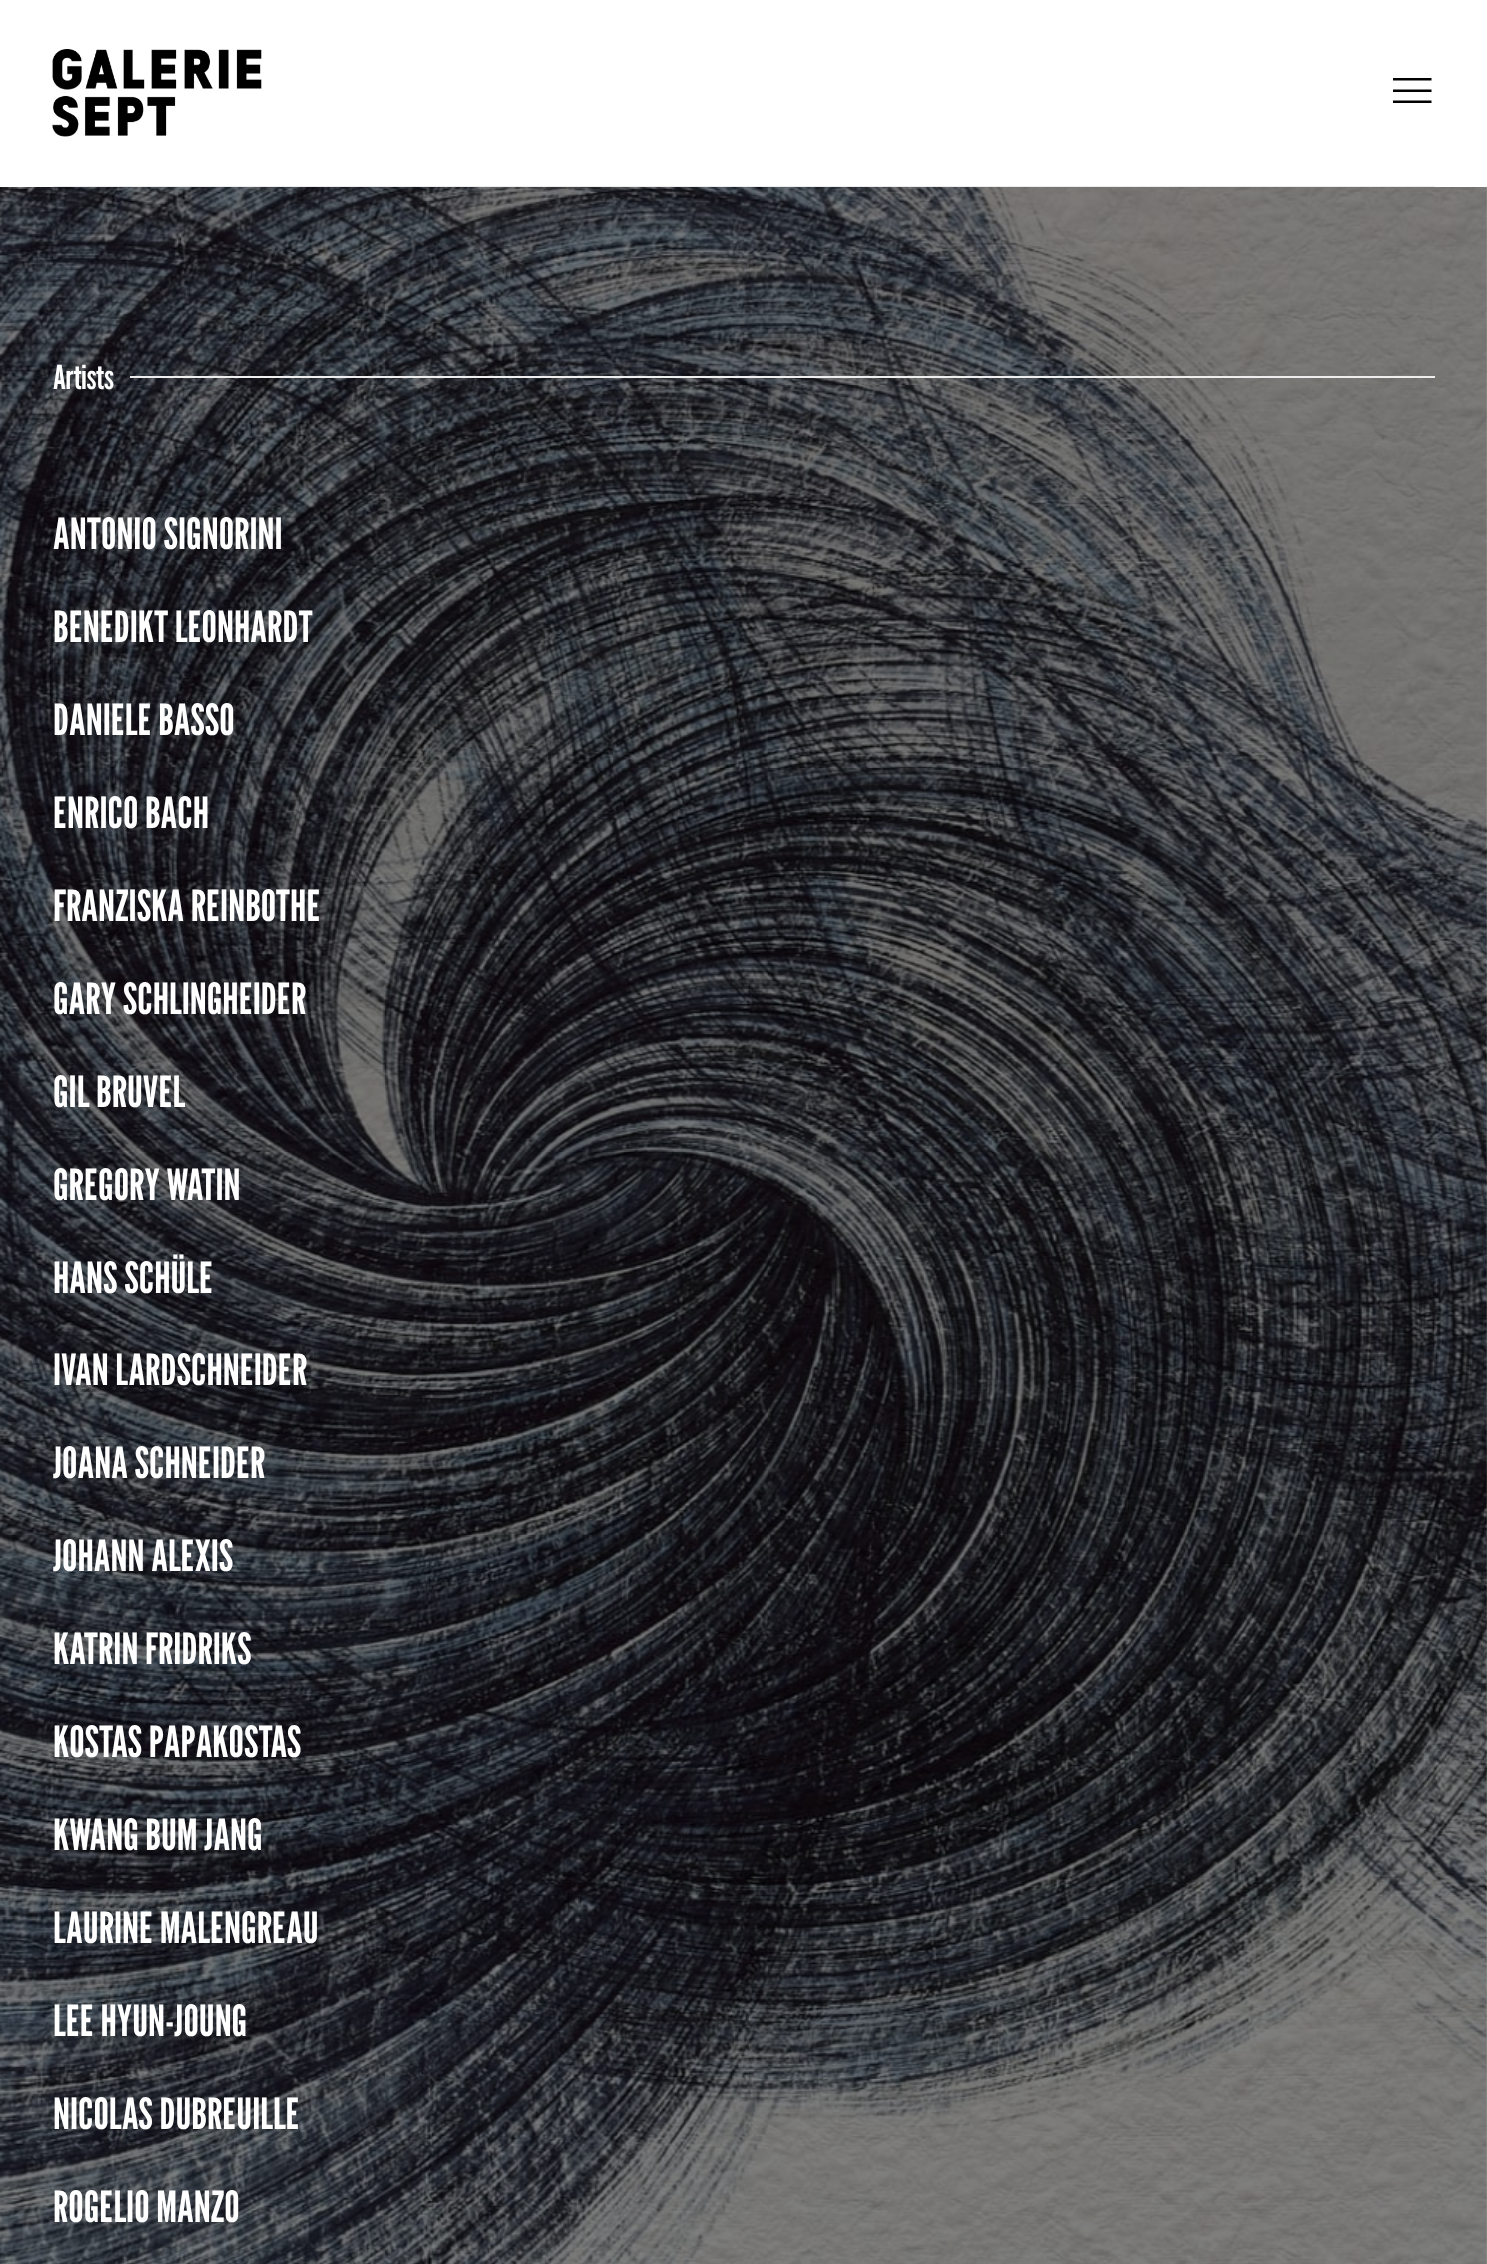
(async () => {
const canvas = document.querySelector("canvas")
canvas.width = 1487
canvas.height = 2264
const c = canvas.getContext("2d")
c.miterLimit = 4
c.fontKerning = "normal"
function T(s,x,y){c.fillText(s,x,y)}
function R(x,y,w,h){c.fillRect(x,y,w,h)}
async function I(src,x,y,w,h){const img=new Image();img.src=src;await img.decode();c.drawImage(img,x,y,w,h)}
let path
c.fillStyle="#fff"
R(0,0,1487,2264)
c.fillStyle="#ebebeb"
R(53,186,1382,1)
await I("1.png",52,49,210,88)
c.fillStyle="#010101"
path = new Path2D("M1393 103v-2.5h38.5v2.5zm0-11v-2.5h38.5v2.5zm0-11.5v-2.5h38.5v2.5z")
c.fill(path)
await I("2.png",0,187,1487,2077)
c.font="33px League Gothic"
c.fillStyle="#fff"
T("Artists",53,389)
c.fillStyle="#eee"
R(130,376,1305,2)
c.font="43px League Gothic"
c.fillStyle="#fff"
T("ANTONIO SIGNORINI",53,549)
T("BENEDIKT LEONHARDT",53,642)
T("DANIELE BASSO",53,735)
T("ENRICO BACH",53,828)
T("FRANZISKA REINBOTHE",53,921)
T("GARY SCHLINGHEIDER",53,1014)
T("GIL BRUVEL",53,1107)
T("GREGORY WATIN",53,1200)
T("HANS SCHÜLE",53,1293)
T("IVAN LARDSCHNEIDER",53,1385)
T("JOANA SCHNEIDER",53,1478)
T("JOHANN ALEXIS",53,1571)
T("KATRIN FRIDRIKS",53,1664)
T("KOSTAS PAPAKOSTAS",53,1757)
T("KWANG BUM JANG",53,1850)
T("LAURINE MALENGREAU",53,1943)
T("LEE HYUN-JOUNG",53,2036)
T("NICOLAS DUBREUILLE",53,2129)
T("ROGELIO MANZO",53,2222)
})()
